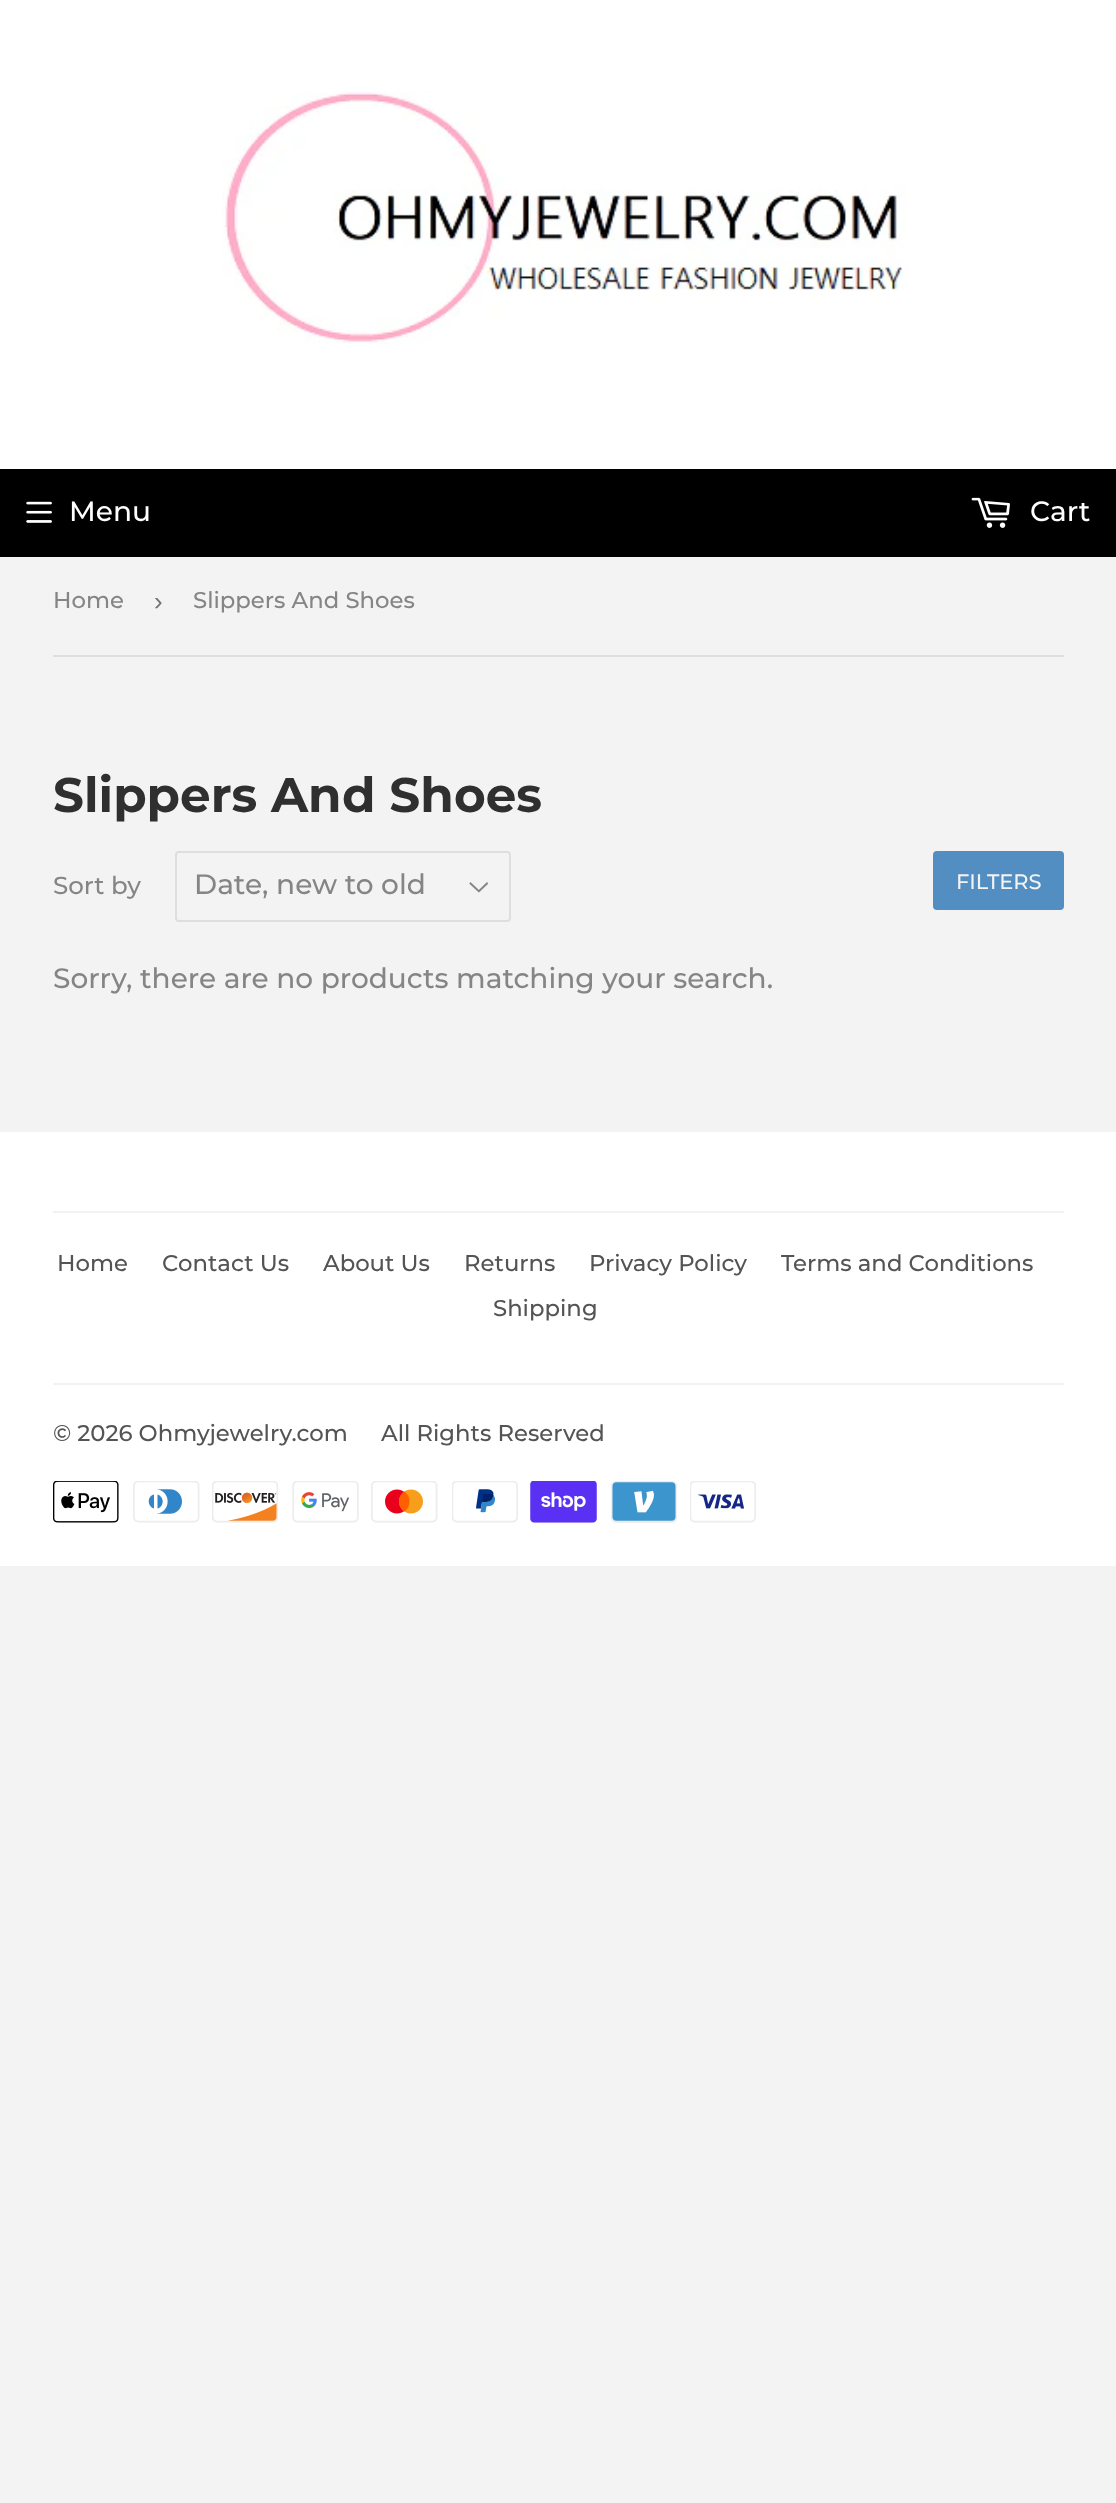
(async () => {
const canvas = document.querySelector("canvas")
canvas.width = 1116
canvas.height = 2503
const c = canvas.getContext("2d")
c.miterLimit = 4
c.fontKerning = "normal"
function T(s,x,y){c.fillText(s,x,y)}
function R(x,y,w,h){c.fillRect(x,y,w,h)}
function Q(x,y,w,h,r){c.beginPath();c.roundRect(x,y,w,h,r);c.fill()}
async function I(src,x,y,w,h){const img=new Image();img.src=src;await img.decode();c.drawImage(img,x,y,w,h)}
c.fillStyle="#f3f3f3"
R(0,0,1116,2503)
c.fillStyle="#fff"
R(0,0,1116,469)
await I("1.png",222,91,686,254)
c.fillStyle="#000"
R(0,469,1116,88)
await I("2.png",26,501,26,22)
c.font="500 28px Montserrat"
c.fillStyle="#fff"
T("Menu",69,521)
await I("3.png",971,497,39,31)
T("Cart",1030,521)
c.fillStyle="#dedede"
R(53,655,1011,2)
c.font="500 22.75px Montserrat"
c.fillStyle="#858585"
T("Home",53,608)
c.font="26px Liberation Sans"
c.fillStyle="#767676"
T("›",154,610)
c.font="500 22.75px Montserrat"
c.fillStyle="#858585"
T("Slippers And Shoes",193,608)
c.font="bold 48.5px Montserrat"
c.fillStyle="#2f2f2f"
T("Slippers And Shoes",53,812)
c.font="500 24.5px Montserrat"
c.fillStyle="#858585"
T("Sort by",53,894)
await I("4.png",469,882,19,11)
c.beginPath()
c.roundRect(176,852,334,69,3)
c.strokeStyle="#dedede"
c.lineWidth=2
c.stroke()
c.font="500 28px Montserrat"
T("Date, new to old",194,894)
c.fillStyle="#528ec1"
Q(933,851,131,59,4)
c.font="500 21px Montserrat"
c.fillStyle="#f3f3f3"
T("FILTERS",956,889)
c.font="500 28px Montserrat"
c.fillStyle="#858585"
T("Sorry, there are no products matching your search.",53,988)
c.fillStyle="#fff"
R(0,1132,1116,434)
c.fillStyle="#f2f2f2"
R(53,1211,1011,2)
c.font="500 22.75px Montserrat"
c.fillStyle="#545454"
T("Home",57,1271)
T("Contact Us",162,1271)
T("About Us",323,1271)
T("Returns",464,1271)
T("Privacy Policy",589,1271)
T("Terms and Conditions",781,1271)
T("Shipping",493,1316)
c.fillStyle="#f2f2f2"
R(53,1383,1011,2)
c.fillStyle="#545454"
T("© 2026 Ohmyjewelry.com",53,1441)
T("All Rights Reserved",381,1441)
await I("5.png",53,1481,66,42)
await I("6.png",133,1481,67,42)
await I("7.png",212,1481,66,42)
await I("8.png",292,1481,67,42)
await I("9.png",371,1481,67,42)
await I("10.png",452,1481,66,42)
await I("11.png",530,1481,67,42)
await I("12.png",611,1481,66,42)
await I("13.png",690,1481,66,42)
})()
